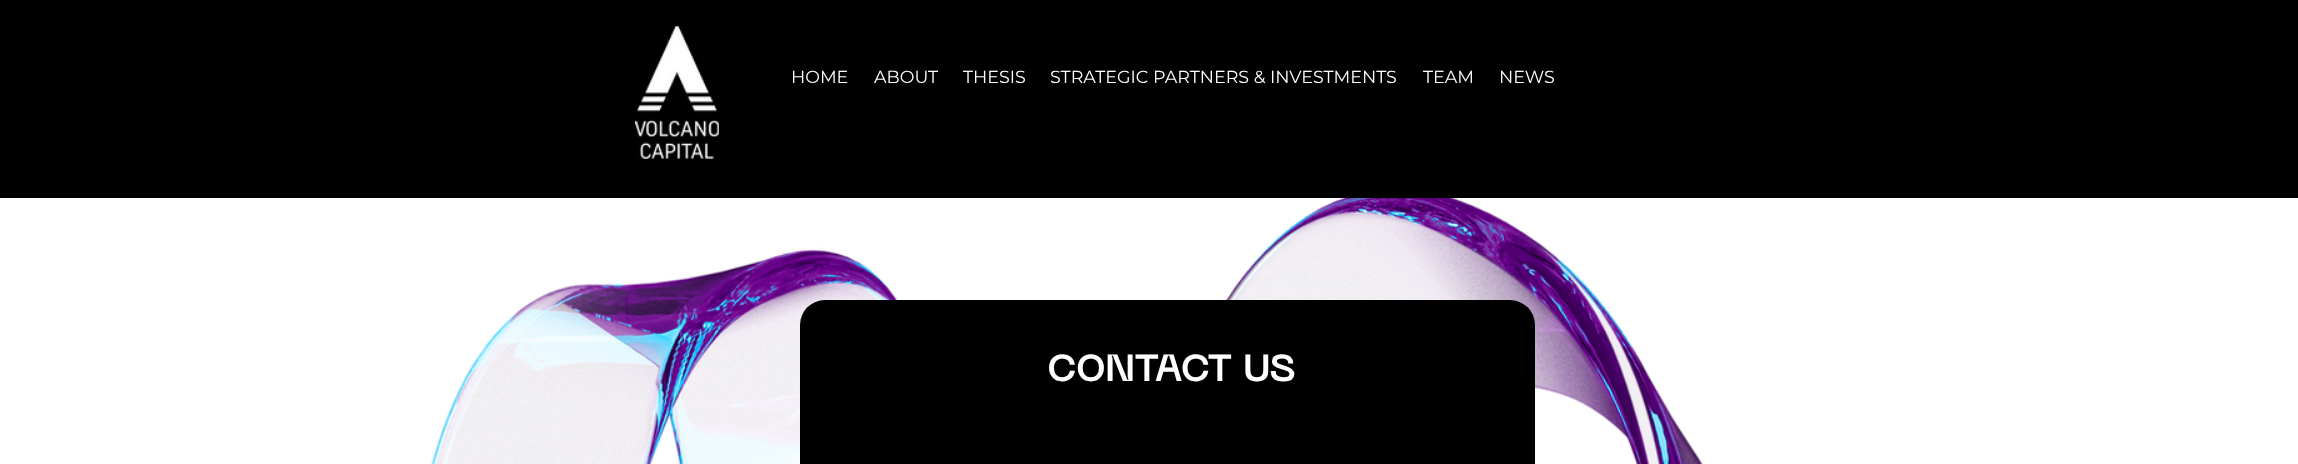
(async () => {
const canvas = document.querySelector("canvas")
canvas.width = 2298
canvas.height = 464
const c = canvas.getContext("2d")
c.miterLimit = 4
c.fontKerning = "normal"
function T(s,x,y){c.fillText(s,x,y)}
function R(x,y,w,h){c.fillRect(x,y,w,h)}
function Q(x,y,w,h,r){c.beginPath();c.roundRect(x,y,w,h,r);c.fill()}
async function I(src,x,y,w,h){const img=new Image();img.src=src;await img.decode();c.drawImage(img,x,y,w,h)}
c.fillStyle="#fff"
R(0,0,2298,464)
c.fillStyle="#000"
R(0,0,2298,198)
await I("1.png",635,26,84,133)
c.font="17.5px Montserrat"
c.fillStyle="#fff"
T("HOME",791,83)
T("ABOUT",874,83)
T("THESIS",963,83)
T("STRATEGIC PARTNERS & INVESTMENTS",1050,83)
T("TEAM",1423,83)
T("NEWS",1499,83)
await I("2.png",431,198,1272,266)
c.fillStyle="#000"
Q(800,300,735,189,25)
c.font="bold 37.5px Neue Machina"
c.fillStyle="#fff"
T("CONTACT US",1047,381)
})()
